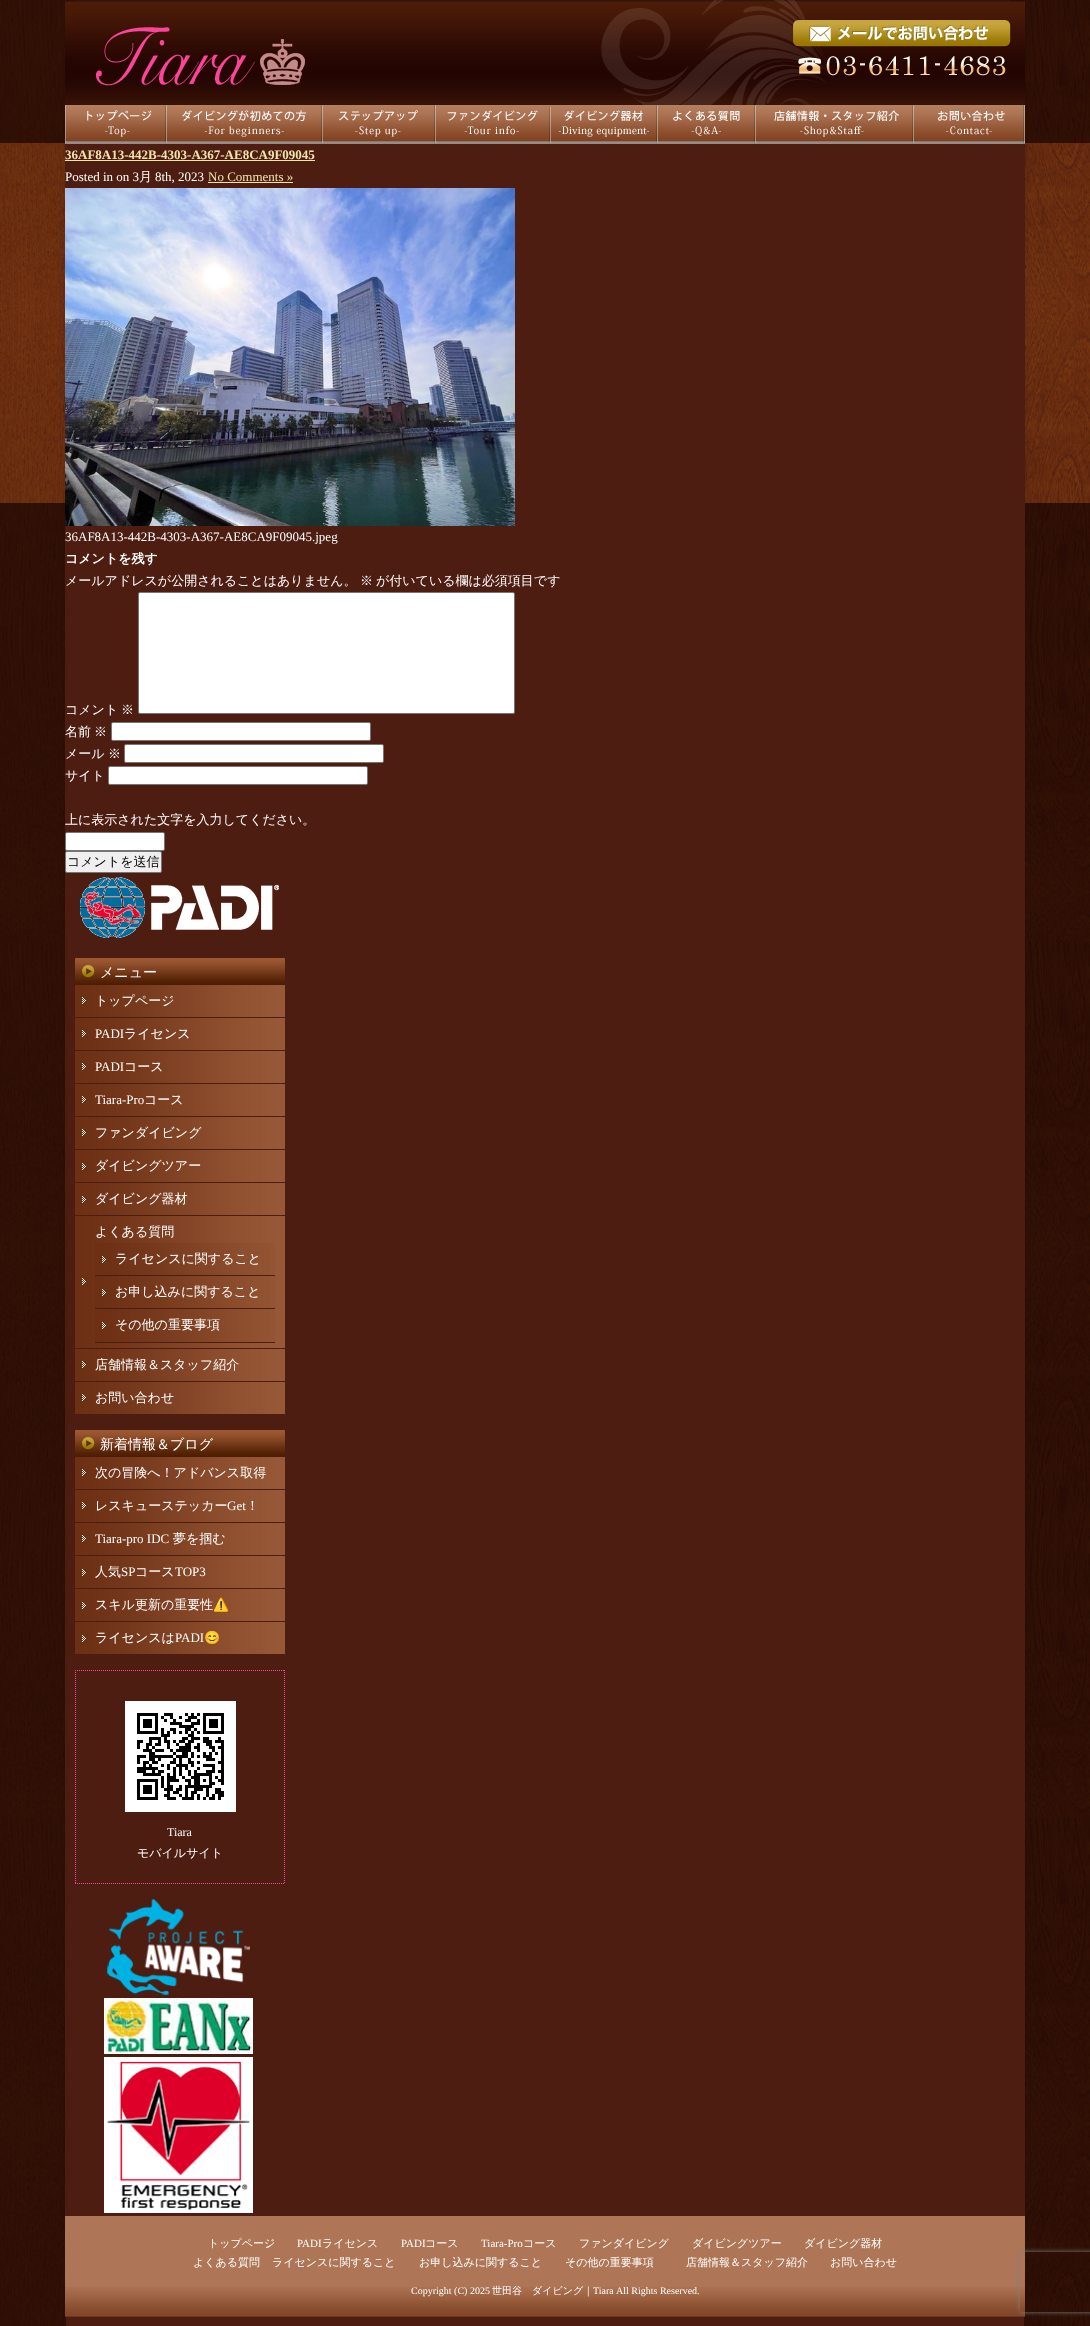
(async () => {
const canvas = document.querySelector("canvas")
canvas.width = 1090
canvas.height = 2326
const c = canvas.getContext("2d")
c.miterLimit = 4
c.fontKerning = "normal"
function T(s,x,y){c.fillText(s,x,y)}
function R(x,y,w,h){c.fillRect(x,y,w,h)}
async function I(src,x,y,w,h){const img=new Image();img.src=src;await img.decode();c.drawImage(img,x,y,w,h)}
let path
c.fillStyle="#fff"
R(0,0,1090,2326)
await I("1.png",0,0,1090,2326)
c.fillStyle="#4e1d11"
R(65,0,960,2216)
await I("2.png",65,0,527,105)
await I("3.png",592,0,433,105)
await I("4.png",65,105,100,39)
await I("5.png",165,105,156,39)
await I("6.png",321,105,113,39)
await I("7.png",434,105,115,39)
await I("8.png",549,105,107,39)
await I("9.png",656,105,98,39)
await I("10.png",754,105,158,39)
await I("11.png",912,105,113,39)
c.font="bold 13px Liberation Serif"
c.fillStyle="#efe5ac"
T("36AF8A13-442B-4303-A367-AE8CA9F09045",65,159)
R(65,160,250,1)
c.font="13px Liberation Serif"
c.fillStyle="#fff"
T("Posted in on 3",65,181)
c.font="500 13px WenQuanYi Zen Hei"
T("月",139,181)
c.font="13px Liberation Serif"
T("8th, 2023",155,181)
c.fillStyle="#efe5ac"
T("No Comments »",208,181)
R(208,182,85,1)
await I("12.png",65,188,450,338)
c.fillStyle="#fff"
T("36AF8A13-442B-4303-A367-AE8CA9F09045.jpeg",65,541)
c.font="bold 13px WenQuanYi Zen Hei"
T("コメントを残す",65,563)
c.font="500 13px WenQuanYi Zen Hei"
T("メールアドレスが公開されることはありません。",65,585)
T("※",360,585)
T("が付いている欄は必須項目です",376,585)
T("コメント",65,714)
T("※",121,714)
c.beginPath()
c.roundRect(138.5,592.5,376,121,1.5)
c.fill()
c.strokeStyle="#767676"
c.stroke()
T("名前",65,736)
T("※",94,736)
c.beginPath()
c.roundRect(111.5,722.5,259,18,1.5)
c.fill()
c.stroke()
T("メール",65,758)
T("※",108,758)
c.beginPath()
c.roundRect(124.5,744.5,259,18,1.5)
c.fill()
c.stroke()
T("サイト",65,780)
c.beginPath()
c.roundRect(108.5,766.5,259,18,1.5)
c.fill()
c.stroke()
T("上に表示された文字を入力してください。",65,824)
c.beginPath()
c.roundRect(65.5,832.5,99,18,1.5)
c.fill()
c.stroke()
c.fillStyle="#efefef"
c.beginPath()
c.roundRect(65.5,851.5,96,21,1.5)
c.fill()
c.stroke()
c.fillStyle="#000"
T("コメントを送信",67,866)
await I("13.png",80,877,199,61)
await I("14.png",75,958,210,27)
c.font="500 14px WenQuanYi Zen Hei"
c.fillStyle="#fff"
T("メニュー",100,977)
await I("15.png",75,985,210,429)
await I("16.png",82,997,4,7)
c.fillStyle="#4e1d11"
R(75,1017,210,1)
c.font="500 13px WenQuanYi Zen Hei"
c.fillStyle="#fff"
T("トップページ",95,1005)
await I("16.png",82,1030,4,7)
c.fillStyle="#4e1d11"
R(75,1050,210,1)
c.font="13px Liberation Serif"
c.fillStyle="#fff"
T("PADI",95,1038)
c.font="500 13px WenQuanYi Zen Hei"
T("ライセンス",124,1038)
await I("16.png",82,1063,4,7)
c.fillStyle="#4e1d11"
R(75,1083,210,1)
c.font="13px Liberation Serif"
c.fillStyle="#fff"
T("PADI",95,1071)
c.font="500 13px WenQuanYi Zen Hei"
T("コース",124,1071)
await I("16.png",82,1096,4,7)
c.fillStyle="#4e1d11"
R(75,1116,210,1)
c.font="13px Liberation Serif"
c.fillStyle="#fff"
T("Tiara-Pro",95,1104)
c.font="500 13px WenQuanYi Zen Hei"
T("コース",144,1104)
await I("16.png",82,1129,4,7)
c.fillStyle="#4e1d11"
R(75,1149,210,1)
c.fillStyle="#fff"
T("ファンダイビング",95,1137)
await I("16.png",82,1163,4,7)
c.fillStyle="#4e1d11"
R(75,1182,210,1)
c.fillStyle="#fff"
T("ダイビングツアー",95,1170)
await I("16.png",82,1196,4,7)
c.fillStyle="#4e1d11"
R(75,1215,210,1)
c.fillStyle="#fff"
T("ダイビング器材",95,1203)
await I("16.png",82,1278,4,7)
c.fillStyle="#4e1d11"
R(75,1348,210,1)
c.fillStyle="#fff"
T("よくある質問",95,1236)
await I("17.png",95,1243,180,99)
await I("16.png",102,1256,4,7)
c.fillStyle="#4e1d11"
R(95,1275,180,1)
c.fillStyle="#fff"
T("ライセンスに関すること",115,1263)
await I("16.png",102,1289,4,7)
c.fillStyle="#4e1d11"
R(95,1308,180,1)
c.fillStyle="#fff"
T("お申し込みに関すること",115,1296)
await I("16.png",102,1322,4,7)
c.fillStyle="#4e1d11"
R(95,1342,180,1)
c.fillStyle="#fff"
T("その他の重要事項",115,1329)
await I("16.png",82,1361,4,7)
c.fillStyle="#4e1d11"
R(75,1381,210,1)
c.fillStyle="#fff"
T("店舗情報＆スタッフ紹介",95,1369)
await I("16.png",82,1394,4,7)
T("お問い合わせ",95,1402)
await I("14.png",75,1430,210,27)
c.font="500 14px WenQuanYi Zen Hei"
T("新着情報＆ブログ",100,1449)
await I("18.png",75,1457,210,197)
await I("16.png",82,1469,4,7)
c.fillStyle="#4e1d11"
R(75,1489,210,1)
c.font="500 13px WenQuanYi Zen Hei"
c.fillStyle="#fff"
T("次の冒険へ！アドバンス取得",95,1477)
await I("16.png",82,1502,4,7)
c.fillStyle="#4e1d11"
R(75,1522,210,1)
c.fillStyle="#fff"
T("レスキューステッカー",95,1510)
c.font="13px Liberation Serif"
T("Get",227,1510)
c.font="500 13px WenQuanYi Zen Hei"
T("！",246,1510)
await I("16.png",82,1535,4,7)
c.fillStyle="#4e1d11"
R(75,1555,210,1)
c.font="13px Liberation Serif"
c.fillStyle="#fff"
T("Tiara-pro IDC",95,1543)
c.font="500 13px WenQuanYi Zen Hei"
T("夢を掴む",173,1543)
await I("16.png",82,1569,4,7)
c.fillStyle="#4e1d11"
R(75,1588,210,1)
c.fillStyle="#fff"
T("人気",95,1576)
c.font="13px Liberation Serif"
T("SP",121,1576)
c.font="500 13px WenQuanYi Zen Hei"
T("コース",135,1576)
c.font="13px Liberation Serif"
T("TOP3",175,1576)
await I("16.png",82,1602,4,7)
c.fillStyle="#4e1d11"
R(75,1621,210,1)
c.font="500 13px WenQuanYi Zen Hei"
c.fillStyle="#fff"
T("スキル更新の重要性",95,1609)
c.font="13px Noto Color Emoji"
T("⚠️",213,1609)
await I("16.png",82,1635,4,7)
c.font="500 13px WenQuanYi Zen Hei"
T("ライセンスは",95,1642)
c.font="13px Liberation Serif"
T("PADI",175,1642)
c.font="13px Noto Color Emoji"
T("😊",204,1642)
path = new Path2D("M75 1670.5h210")
c.strokeStyle="#fc449b"
c.setLineDash([1,1])
c.stroke(path)
path = new Path2D("M284.5 1670v214")
c.stroke(path)
path = new Path2D("M75 1883.5h210")
c.stroke(path)
path = new Path2D("M75.5 1670v214")
c.stroke(path)
await I("19.png",125,1701,111,111)
c.font="12px Liberation Serif"
T("Tiara",167,1836)
c.font="500 12px WenQuanYi Zen Hei"
T("モバイルサイト",137,1857)
await I("20.png",107,1899,143,96)
await I("21.png",104,1998,149,56)
await I("22.png",104,2057,149,156)
c.fillStyle="#ae7656"
R(65,2216,960,71)
await I("23.png",65,2287,960,30)
c.font="500 11px WenQuanYi Zen Hei"
c.fillStyle="#fff"
T("トップページ",208,2247)
c.font="11px Liberation Serif"
T("PADI",297,2247)
c.font="500 11px WenQuanYi Zen Hei"
T("ライセンス",322,2247)
c.font="11px Liberation Serif"
T("PADI",401,2247)
c.font="500 11px WenQuanYi Zen Hei"
T("コース",425,2247)
c.font="11px Liberation Serif"
T("Tiara-Pro",481,2247)
c.font="500 11px WenQuanYi Zen Hei"
T("コース",523,2247)
T("ファンダイビング",579,2247)
T("ダイビングツアー",692,2247)
T("ダイビング器材",804,2247)
T("よくある質問",193,2266)
T("ライセンスに関すること",272,2266)
T("お申し込みに関すること",419,2266)
T("その他の重要事項",565,2266)
T("店舗情報＆スタッフ紹介",686,2266)
T("お問い合わせ",830,2266)
c.font="10px Liberation Serif"
T("Copyright (C) 2025",411,2294)
c.font="500 10px WenQuanYi Zen Hei"
T("世田谷　ダイビング｜",492,2294)
c.font="10px Liberation Serif"
T("Tiara",593,2294)
T("All Rights Reserved.",616,2294)
c.save()
path = new Path2D("M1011 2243h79v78h-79zm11 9h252c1 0 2 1 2 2v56c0 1-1 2-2 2h-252c-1 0-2-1-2-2v-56c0-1 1-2 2-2z")
c.clip(path,"evenodd")
c.fillStyle="#808080"
c.filter="blur(2.5px)"
c.beginPath()
c.roundRect(1020,2252,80,60,2)
c.fill()
c.filter="none"
c.restore()
})()
